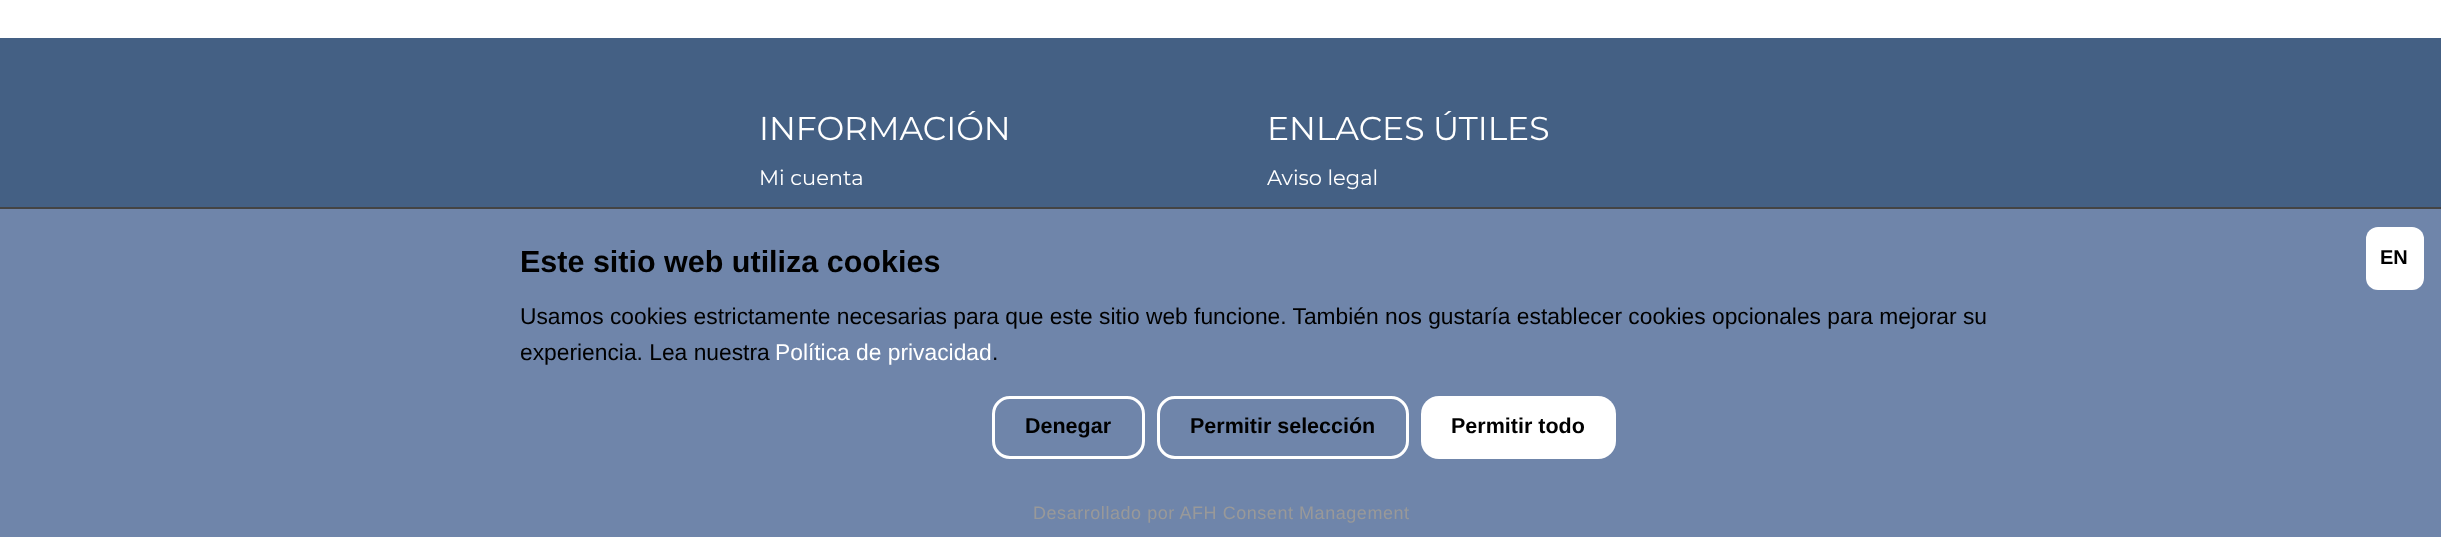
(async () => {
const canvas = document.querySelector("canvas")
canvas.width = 2441
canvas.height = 537
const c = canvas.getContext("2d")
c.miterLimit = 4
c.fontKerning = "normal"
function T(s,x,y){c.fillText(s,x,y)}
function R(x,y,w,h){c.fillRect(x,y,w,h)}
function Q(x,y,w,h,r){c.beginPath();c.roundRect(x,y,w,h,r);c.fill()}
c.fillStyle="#fff"
R(0,0,2441,537)
c.fillStyle="#446084"
R(0,38,2441,169)
c.font="33px Montserrat"
c.fillStyle="#fff"
T("INFORMACIÓN",759,140)
c.font="21px Montserrat"
T("Mi cuenta",759,185)
c.font="33px Montserrat"
T("ENLACES ÚTILES",1267,140)
c.font="21px Montserrat"
T("Aviso legal",1267,185)
c.fillStyle="#6f85aa"
R(0,209,2441,328)
c.fillStyle="#444"
R(0,207,2441,2)
c.font="bold 30.5px Liberation Sans"
c.fillStyle="#000"
T("Este sitio web utiliza cookies",520,272)
c.font="22.8px Liberation Sans"
T("Usamos cookies estrictamente necesarias para que este sitio web funcione. También nos gustaría establecer cookies opcionales para mejorar su",520,324)
T("experiencia. Lea nuestra",520,360)
c.fillStyle="#fff"
T("Política de privacidad",775,360)
c.fillStyle="#000"
T(".",992,360)
c.beginPath()
c.roundRect(993.5,397.5,150,60,16.5)
c.strokeStyle="#fff"
c.lineWidth=3
c.stroke()
c.font="bold 21.5px Liberation Sans"
T("Denegar",1025,433)
c.beginPath()
c.roundRect(1158.5,397.5,249,60,16.5)
c.stroke()
T("Permitir selección",1190,433)
c.fillStyle="#fff"
Q(1421,396,195,63,18)
c.fillStyle="#000"
T("Permitir todo",1451,433)
c.fillStyle="#fff"
Q(2366,227,58,63,12)
c.font="bold 20px Liberation Sans"
c.fillStyle="#000"
T("EN",2380,264)
c.letterSpacing="0.55px"
c.font="18px Liberation Sans"
c.fillStyle="#999"
T("Desarrollado por AFH Consent Management",1033,519)
})()
